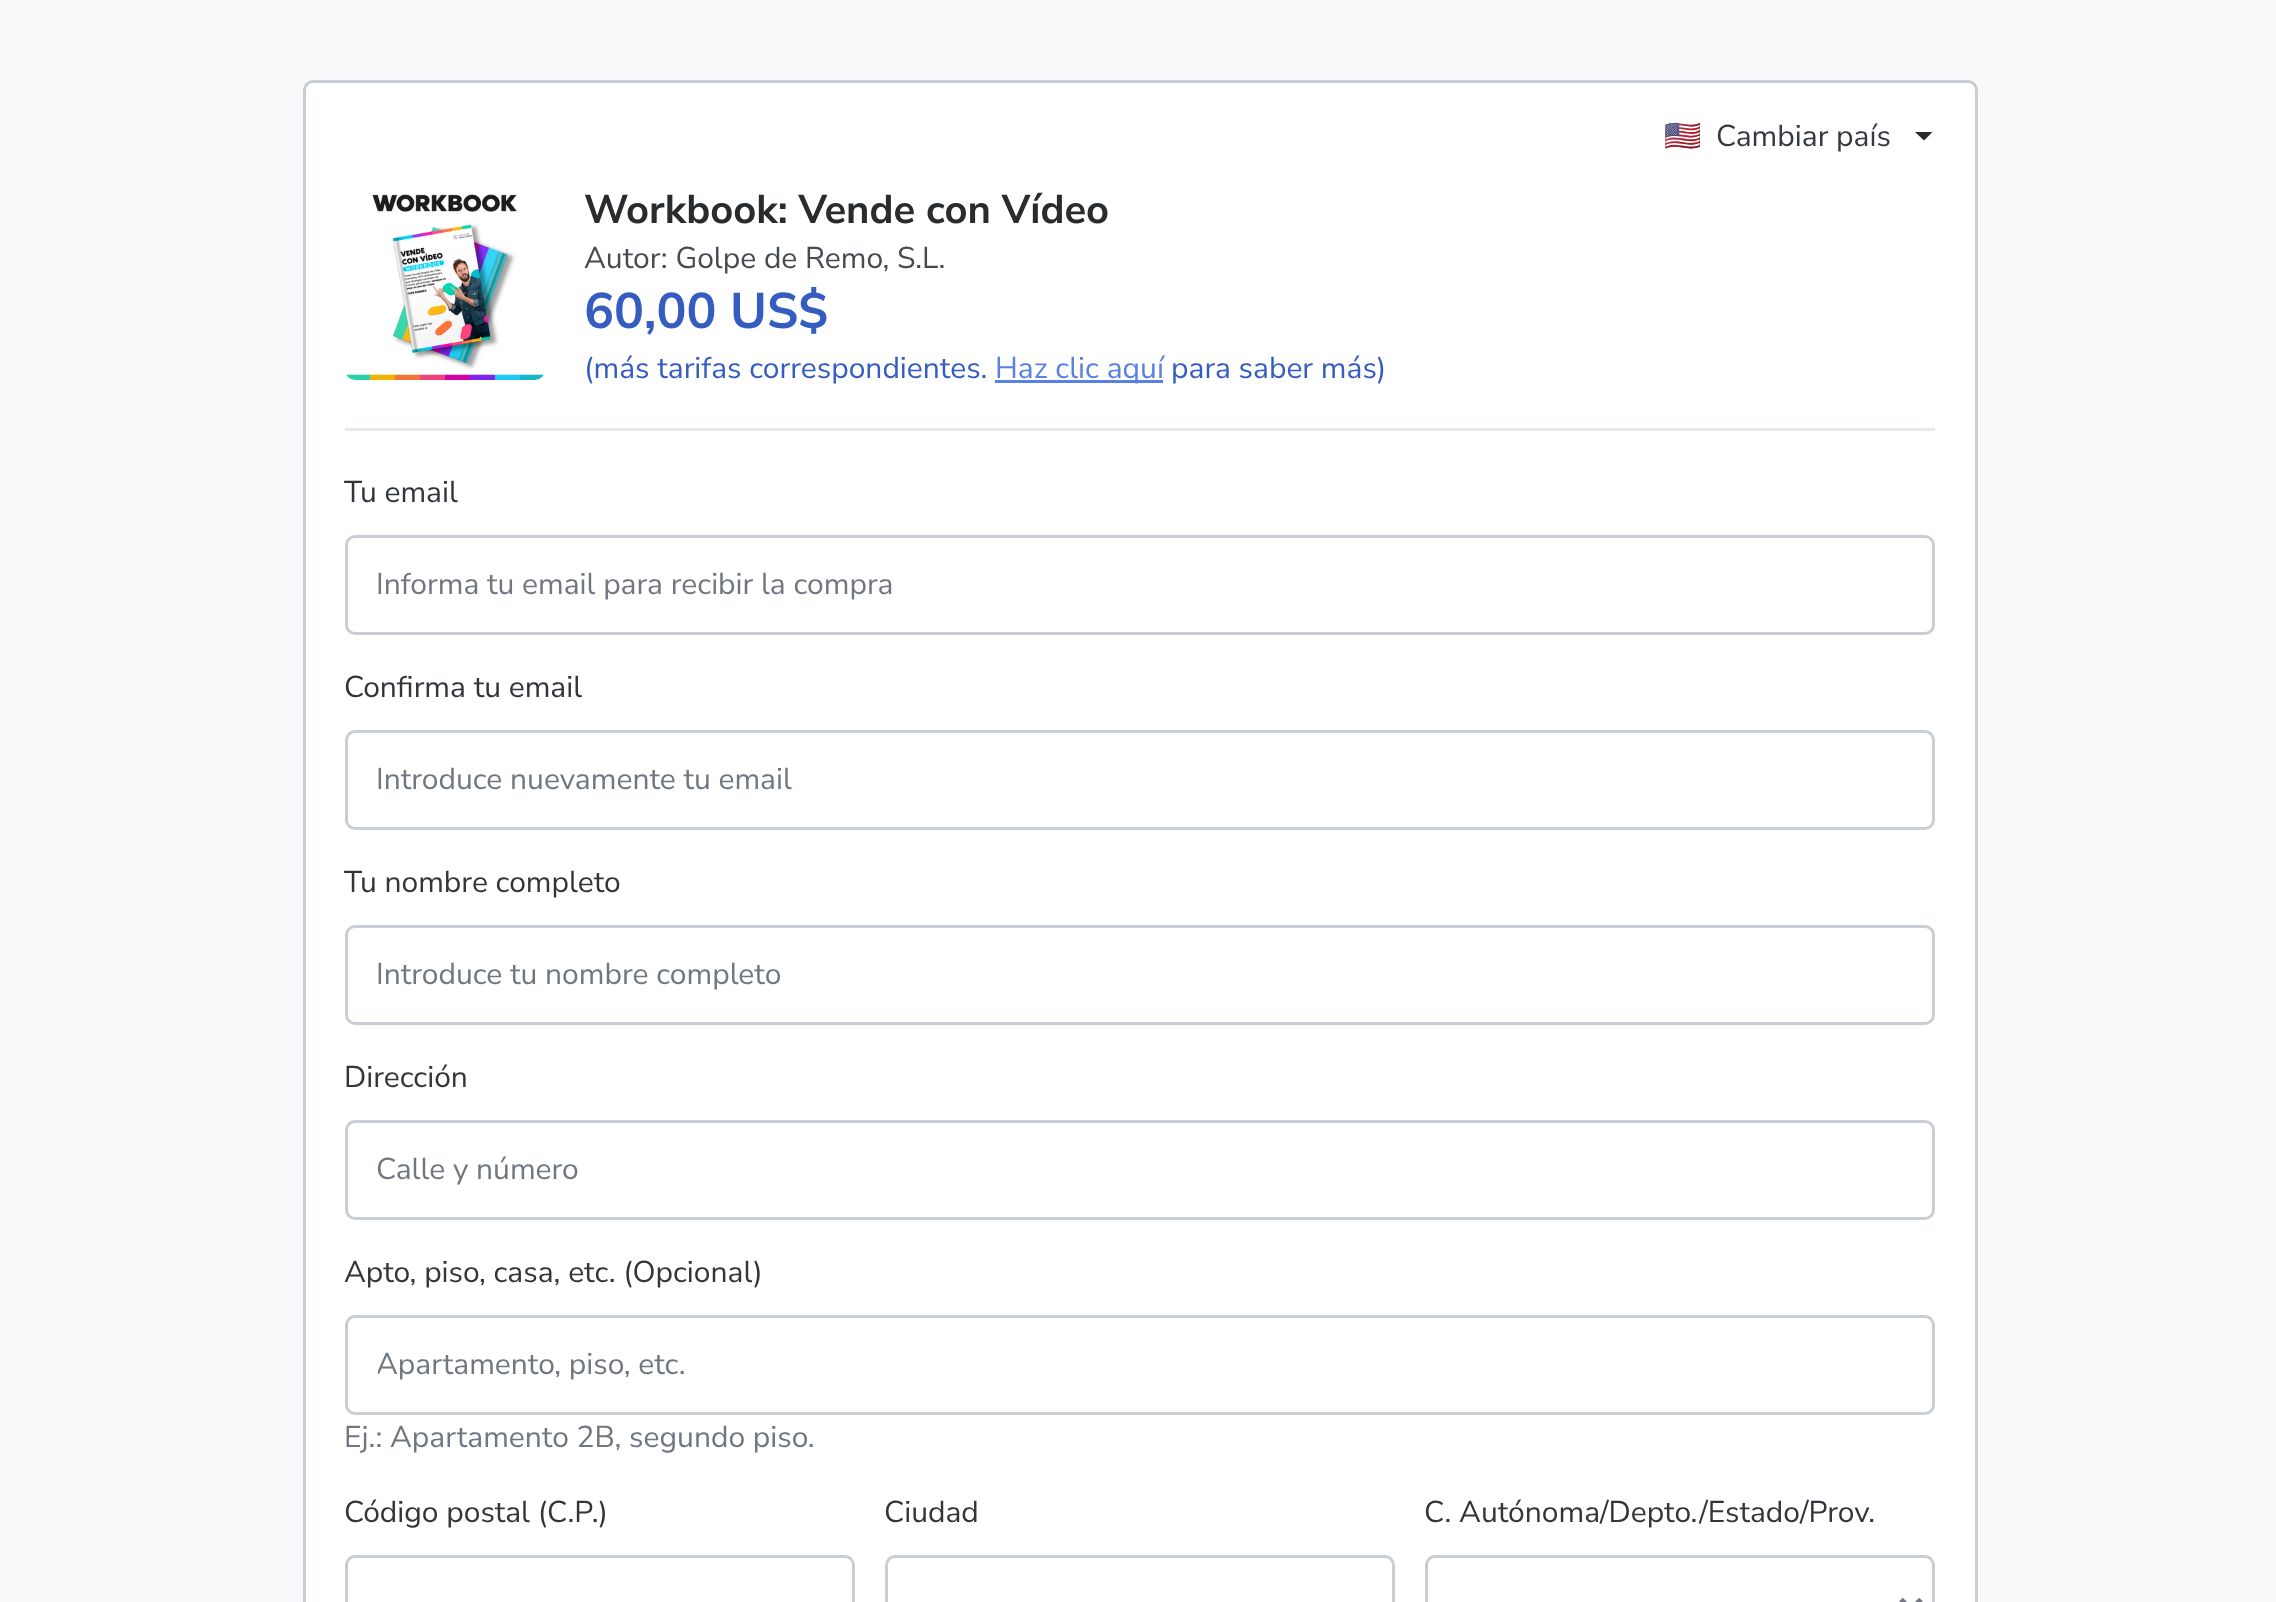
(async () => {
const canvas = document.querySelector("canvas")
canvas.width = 2276
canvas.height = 1602
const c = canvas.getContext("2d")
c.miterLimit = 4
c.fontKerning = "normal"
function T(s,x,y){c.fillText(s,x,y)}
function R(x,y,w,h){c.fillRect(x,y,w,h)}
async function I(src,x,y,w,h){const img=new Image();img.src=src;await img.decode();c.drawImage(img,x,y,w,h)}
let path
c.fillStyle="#f7f9fa"
R(0,0,2276,1602)
c.fillStyle="#fff"
c.beginPath()
c.roundRect(304.5,81.5,1672,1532,8.5)
c.fill()
c.strokeStyle="#c9ced4"
c.lineWidth=3
c.stroke()
c.font="30px Noto Color Emoji"
c.fillStyle="#343a42"
T("🇺🇸",1664,146)
c.font="30px Nunito Sans"
T("Cambiar país",1716,146)
c.fillStyle="#282c2f"
path = new Path2D("M1915 132l9 8.5l8.5-8.5z")
c.fill(path,"evenodd")
await I("1.png",346,194,198,186)
c.font="bold 40px Nunito Sans"
T("Workbook: Vende con Vídeo",584,223)
c.font="30px Nunito Sans"
c.fillStyle="#464b52"
T("Autor: Golpe de Remo, S.L.",584,268)
c.font="bold 50px Nunito Sans"
c.fillStyle="#355cc0"
T("60,00 US$",584,328)
c.font="30px Nunito Sans"
T("(más tarifas correspondientes.",584,378)
c.fillStyle="#5981e3"
R(995,380,168,3)
T("Haz clic aquí",995,378)
c.fillStyle="#355cc0"
T("para saber más)",1171,378)
c.fillStyle="#e6e9ed"
R(345,428,1590,3)
c.fillStyle="#32363b"
T("Tu email",344,502)
c.beginPath()
c.roundRect(346.5,536.5,1587,97,8.5)
c.stroke()
c.fillStyle="#707780"
T("Informa tu email para recibir la compra",376,594)
c.fillStyle="#32363b"
T("Confirma tu email",344,697)
c.beginPath()
c.roundRect(346.5,731.5,1587,97,8.5)
c.stroke()
c.fillStyle="#707780"
T("Introduce nuevamente tu email",376,789)
c.fillStyle="#32363b"
T("Tu nombre completo",344,892)
c.beginPath()
c.roundRect(346.5,926.5,1587,97,8.5)
c.stroke()
c.fillStyle="#707780"
T("Introduce tu nombre completo",376,984)
c.fillStyle="#32363b"
T("Dirección",344,1087)
c.beginPath()
c.roundRect(346.5,1121.5,1587,97,8.5)
c.stroke()
c.fillStyle="#707780"
T("Calle y número",376,1179)
c.fillStyle="#32363b"
T("Apto, piso, casa, etc. (Opcional)",344,1282)
c.beginPath()
c.roundRect(346.5,1316.5,1587,97,8.5)
c.stroke()
c.save()
c.beginPath()
c.rect(378,1345,1525,40)
c.clip()
c.fillStyle="#707780"
T("Apartamento, piso, etc.",376,1374)
c.restore()
c.fillStyle="#707780"
T("Ej.: Apartamento 2B, segundo piso.",344,1447)
c.fillStyle="#32363b"
T("Código postal (C.P.)",344,1522)
c.beginPath()
c.roundRect(346.5,1556.5,507,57,8.5)
c.stroke()
T("Ciudad",884,1522)
c.beginPath()
c.roundRect(886.5,1556.5,507,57,8.5)
c.stroke()
T("C. Autónoma/Depto./Estado/Prov.",1424,1522)
c.beginPath()
c.roundRect(1426.5,1556.5,507,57,8.5)
c.stroke()
path = new Path2D("M1901 1599.5l10 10l10-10")
c.strokeStyle="#707780"
c.lineWidth=5
c.stroke(path)
})()
